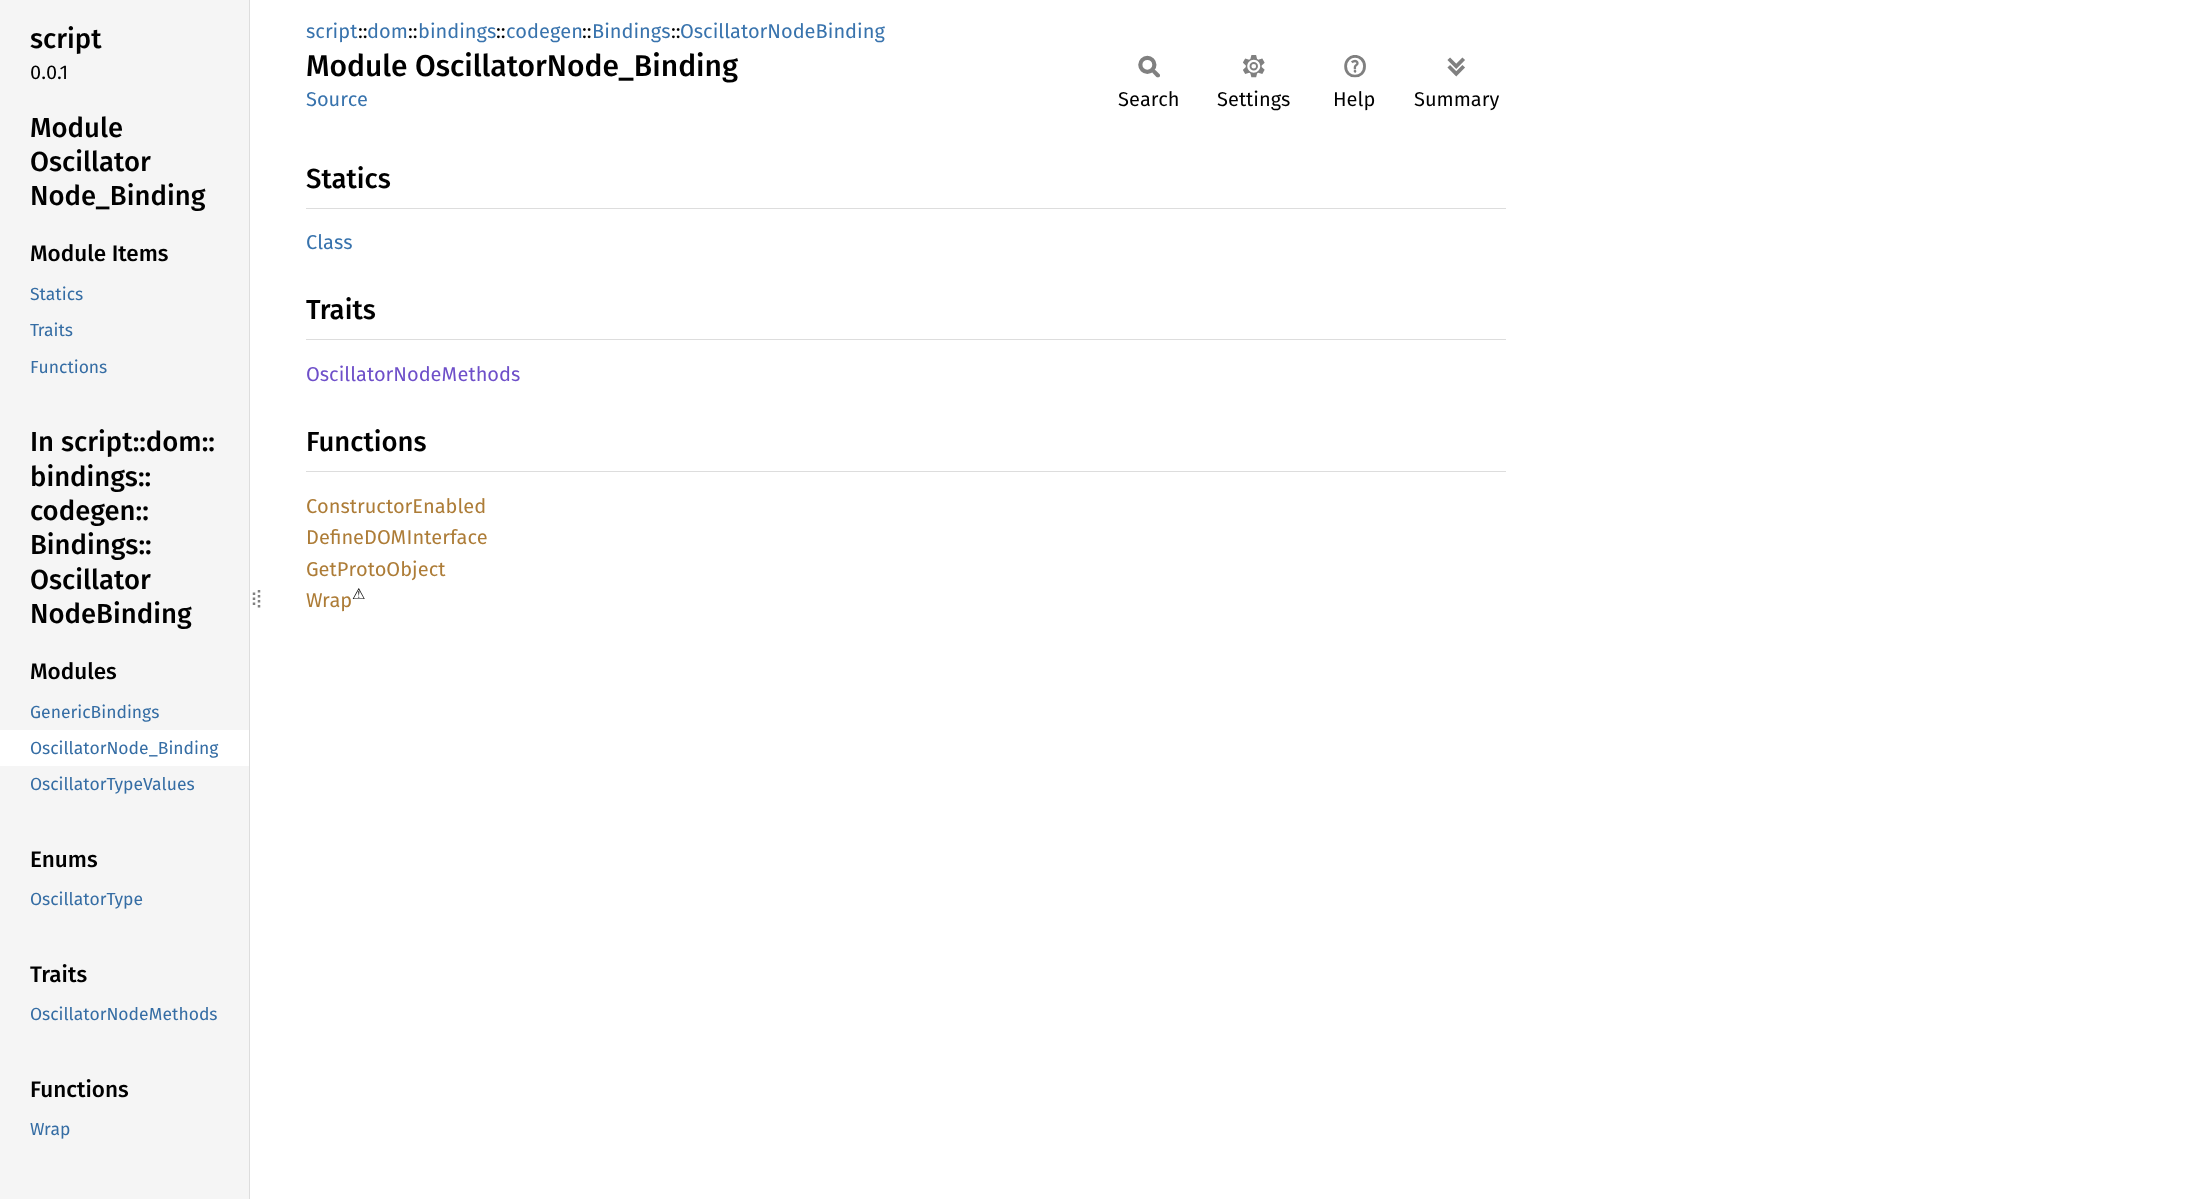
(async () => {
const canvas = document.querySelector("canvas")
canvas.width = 2196
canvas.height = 1199
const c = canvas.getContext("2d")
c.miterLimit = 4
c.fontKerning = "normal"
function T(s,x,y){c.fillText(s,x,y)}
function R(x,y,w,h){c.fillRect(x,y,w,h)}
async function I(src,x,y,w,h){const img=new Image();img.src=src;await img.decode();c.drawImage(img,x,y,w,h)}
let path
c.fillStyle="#fff"
R(0,0,2196,1199)
c.fillStyle="#f5f5f5"
R(0,0,249,1199)
c.fillStyle="#ddd"
R(249,0,1,1199)
c.font="500 27.5px Fira Sans"
c.fillStyle="#000"
T("script",30,48)
c.font="20px Fira Sans"
T("0.0.1",30,79)
c.font="500 27.5px Fira Sans"
T("Module",30,137)
T("Oscillator",30,171)
T("Node_Binding",30,205)
c.font="500 22.5px Fira Sans"
T("Module Items",30,261)
c.font="17.5px Fira Sans"
c.fillStyle="#356da4"
T("Statics",30,300)
T("Traits",30,336)
T("Functions",30,373)
c.font="500 27.5px Fira Sans"
c.fillStyle="#000"
T("In script::dom::",30,451)
T("bindings::",30,486)
T("codegen::",30,520)
T("Bindings::",30,554)
T("Oscillator",30,589)
T("NodeBinding",30,623)
c.font="500 22.5px Fira Sans"
T("Modules",30,679)
c.font="17.5px Fira Sans"
c.fillStyle="#356da4"
T("GenericBindings",30,718)
c.fillStyle="#fff"
R(0,730,249,36)
c.fillStyle="#356da4"
T("OscillatorNode_Binding",30,754)
T("OscillatorTypeValues",30,790)
c.font="500 22.5px Fira Sans"
c.fillStyle="#000"
T("Enums",30,867)
c.font="17.5px Fira Sans"
c.fillStyle="#356da4"
T("OscillatorType",30,905)
c.font="500 22.5px Fira Sans"
c.fillStyle="#000"
T("Traits",30,982)
c.font="17.5px Fira Sans"
c.fillStyle="#356da4"
T("OscillatorNodeMethods",30,1020)
c.font="500 22.5px Fira Sans"
c.fillStyle="#000"
T("Functions",30,1097)
c.font="17.5px Fira Sans"
c.fillStyle="#356da4"
T("Wrap",30,1135)
path = new Path2D("M254 592.5v2.5m0 2.5v2.5m0 2.5v2.5")
c.strokeStyle="#808080"
c.lineWidth=2.5
c.stroke(path)
path = new Path2D("M259 590v20")
c.setLineDash([2.5,2.5])
c.stroke(path)
c.font="20px Fira Sans"
c.fillStyle="#3873ad"
T("script",306,38)
c.fillStyle="#000"
T("::",358,38)
c.fillStyle="#3873ad"
T("dom",367,38)
c.fillStyle="#000"
T("::",408,38)
c.fillStyle="#3873ad"
T("bindings",418,38)
c.fillStyle="#000"
T("::",496,38)
c.fillStyle="#3873ad"
T("codegen",506,38)
c.fillStyle="#000"
T("::",582,38)
c.fillStyle="#3873ad"
T("Bindings",592,38)
c.fillStyle="#000"
T("::",671,38)
c.fillStyle="#3873ad"
T("OscillatorNodeBinding",680,38)
c.font="500 30px Fira Sans"
c.fillStyle="#000"
T("Module OscillatorNode_Binding",306,76)
c.font="20px Fira Sans"
c.fillStyle="#3873ad"
T("Source",306,106)
await I("1.png",1138,55,22,23)
c.fillStyle="#000"
T("Search",1118,106)
await I("2.png",1243,55,22,23)
T("Settings",1217,106)
await I("3.png",1344,55,22,23)
T("Help",1333,106)
await I("4.png",1447,57,18,20)
T("Summary",1414,106)
c.fillStyle="#ddd"
R(306,208,1200,1)
c.font="500 27.5px Fira Sans"
c.fillStyle="#000"
T("Statics",306,188)
c.font="20px Fira Sans"
c.fillStyle="#3873ad"
T("Class",306,249)
c.fillStyle="#ddd"
R(306,339,1200,1)
c.font="500 27.5px Fira Sans"
c.fillStyle="#000"
T("Traits",306,319)
c.font="20px Fira Sans"
c.fillStyle="#6e4fc9"
T("OscillatorNodeMethods",306,381)
c.fillStyle="#ddd"
R(306,471,1200,1)
c.font="500 27.5px Fira Sans"
c.fillStyle="#000"
T("Functions",306,451)
c.font="20px Fira Sans"
c.fillStyle="#ad7c37"
T("ConstructorEnabled",306,513)
T("DefineDOMInterface",306,544)
T("GetProtoObject",306,576)
T("Wrap",306,607)
c.font="15px DejaVu Sans"
c.fillStyle="#000"
T("⚠",352,599)
})()
